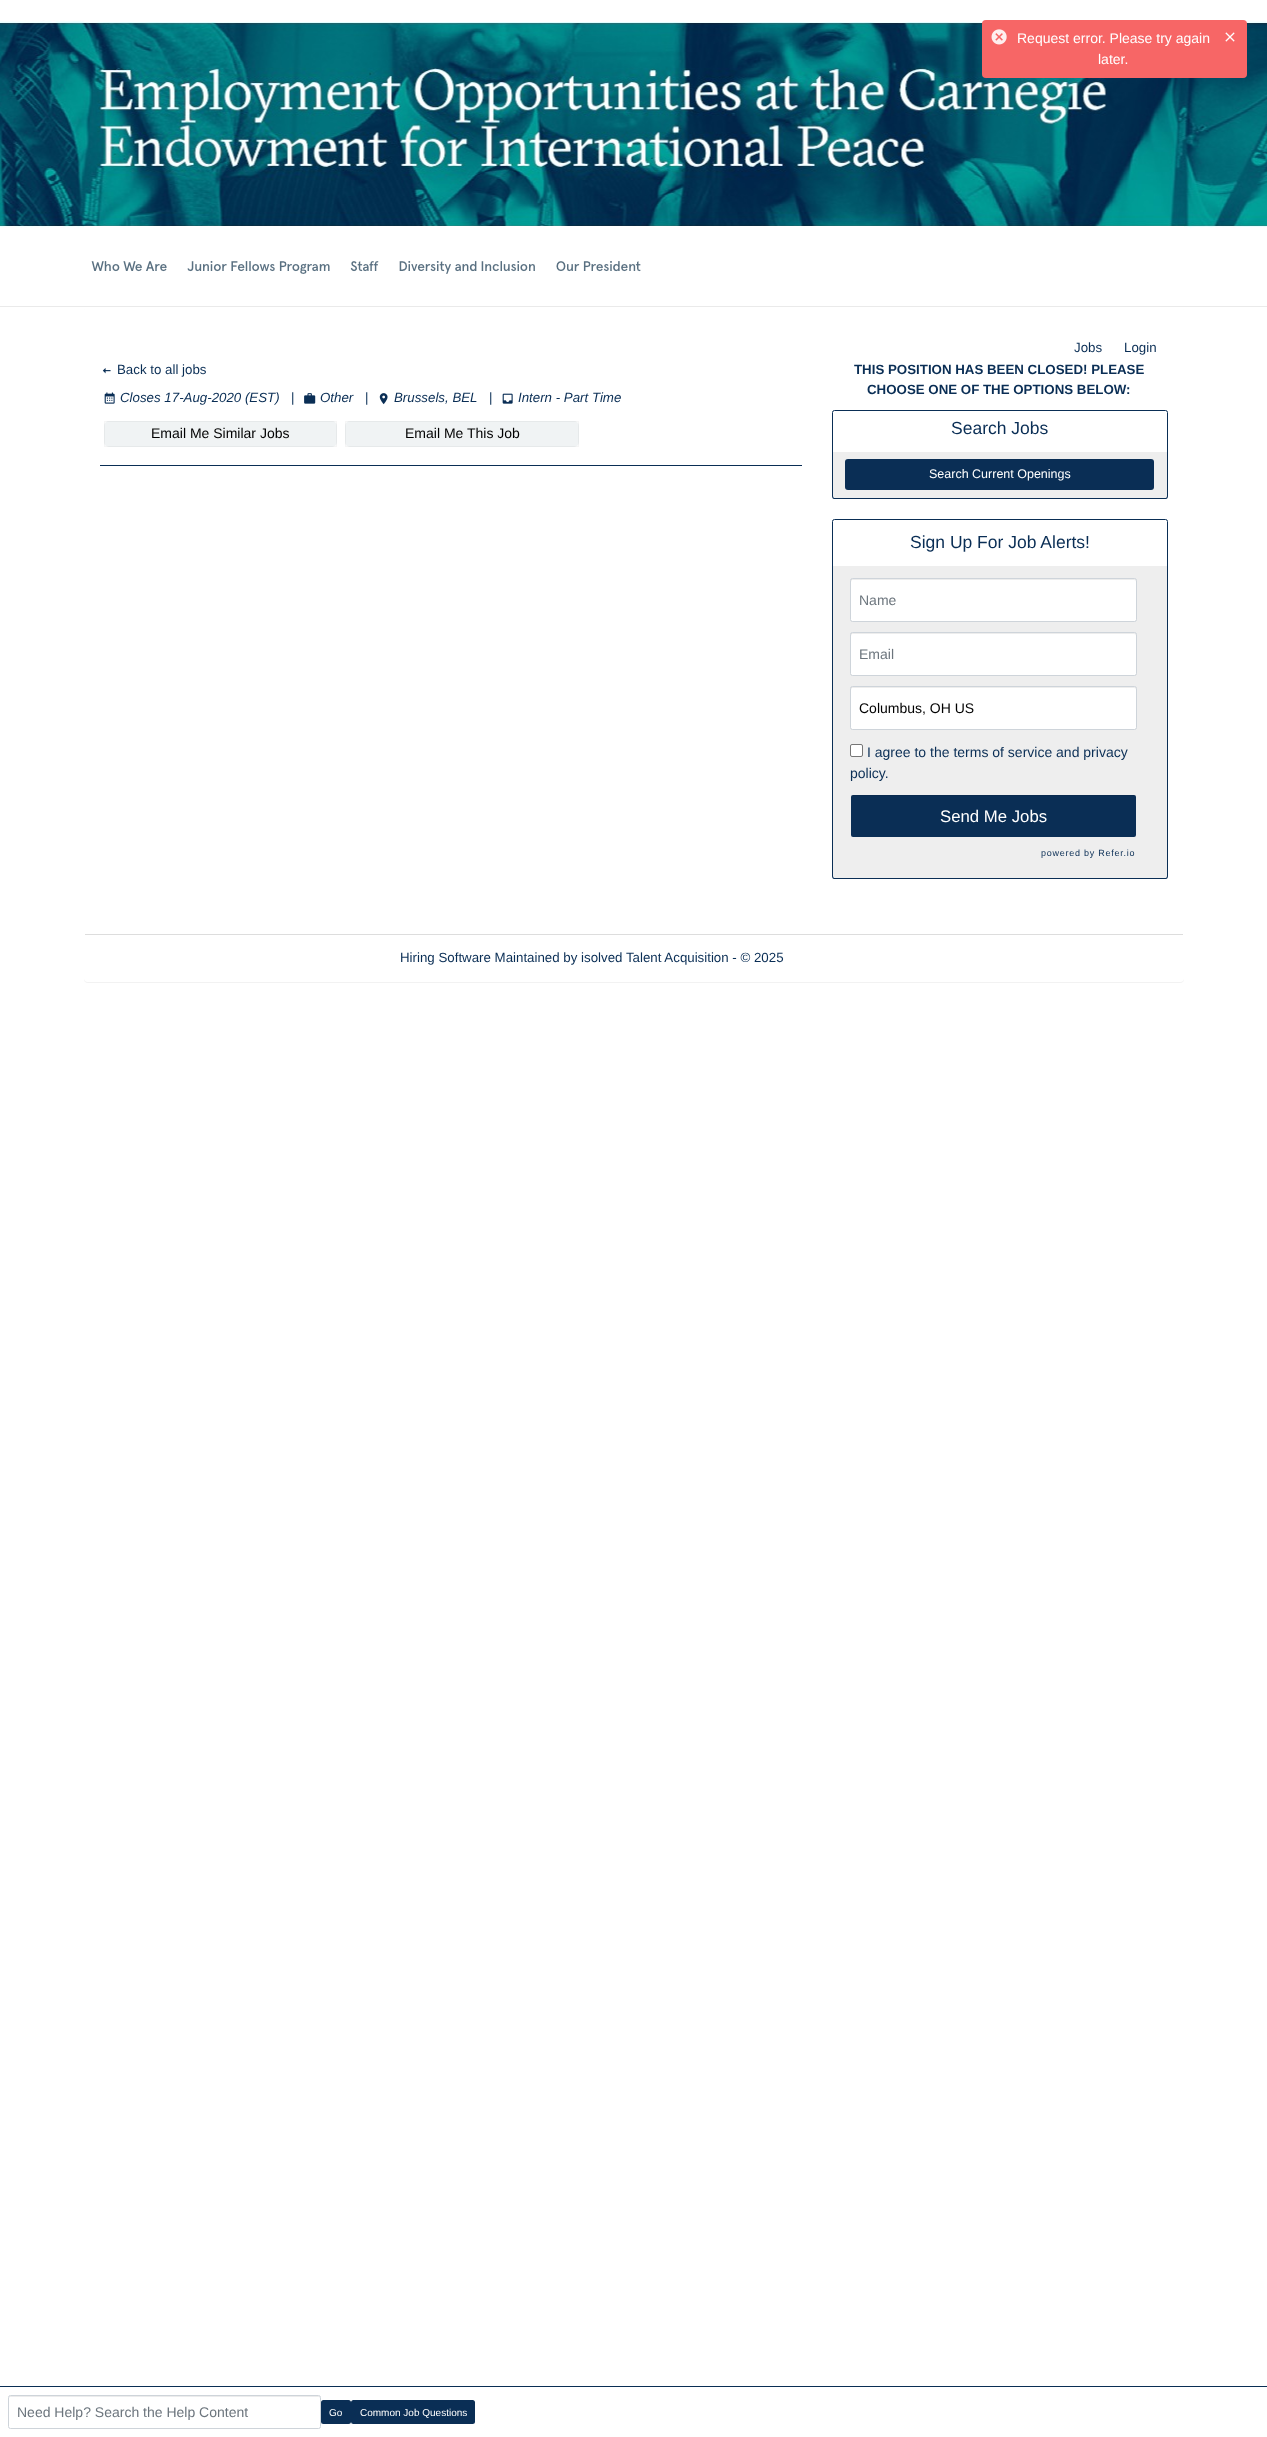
(async () => {
const canvas = document.querySelector("canvas")
canvas.width = 1267
canvas.height = 2437
const c = canvas.getContext("2d")
c.miterLimit = 4
c.fontKerning = "normal"
function T(s,x,y){c.fillText(s,x,y)}
function R(x,y,w,h){c.fillRect(x,y,w,h)}
function Q(x,y,w,h,r){c.beginPath();c.roundRect(x,y,w,h,r);c.fill()}
async function I(src,x,y,w,h){const img=new Image();img.src=src;await img.decode();c.drawImage(img,x,y,w,h)}
let path
c.fillStyle="#fff"
R(0,0,1267,2437)
await I("1.png",0,20,1267,287)
await I("4.png",84,20,1100,254)
c.fillStyle="#f65555"
Q(982,20,265,58,4)
await I("2.png",991,29,16,16)
c.fillStyle="#ffffff1a"
Q(982,20,265,58,4)
c.font="14px Liberation Sans"
c.fillStyle="#fff"
T("Request error. Please try again",1017,43)
T("later.",1098,64)
await I("3.png",1225,32,10,10)
c.fillStyle="#0000000d"
c.filter="blur(0.5px)"
c.beginPath()
c.roundRect(84,308,1100,675,4)
c.fill()
c.filter="none"
c.fillStyle="#fff"
Q(84,307,1100,675,4)
c.font="13.3px Liberation Sans"
c.fillStyle="#0a2e55"
T("Jobs",1074,352)
T("Login",1124,352)
await I("5.png",102,368,9,6)
T("Back to all jobs",117,374)
await I("6.png",104,392,11,12)
c.font="italic 13.3px Liberation Sans"
T("Closes 17-Aug-2020 (EST)",120,402)
c.font="13.3px Liberation Sans"
T("|",291,402)
await I("7.png",304,393,12,11)
c.font="italic 13.3px Liberation Sans"
T("Other",320,402)
c.font="13.3px Liberation Sans"
T("|",365,402)
await I("8.png",379,393,9,12)
c.font="italic 13.3px Liberation Sans"
T("Brussels, BEL",394,402)
c.font="13.3px Liberation Sans"
T("|",489,402)
await I("9.png",502,393,11,11)
c.font="italic 13.3px Liberation Sans"
T("Intern - Part Time",518,402)
c.fillStyle="#f0f3f4"
Q(104,421,233,26,5)
c.strokeStyle="#0000000a"
c.strokeRect(104.5,421.5,232,25)
c.font="14px Liberation Sans"
c.fillStyle="#000"
T("Email Me Similar Jobs",151,438)
c.fillStyle="#f0f3f4"
Q(345,421,234,26,5)
c.strokeRect(345.5,421.5,233,25)
c.fillStyle="#000"
T("Email Me This Job",405,438)
c.fillStyle="#0a2e55"
R(100,465,702,1)
c.font="bold 13.3px Liberation Sans"
T("THIS POSITION HAS BEEN CLOSED! PLEASE",854,374)
T("CHOOSE ONE OF THE OPTIONS BELOW:",867,394)
c.beginPath()
c.roundRect(832.5,410.5,335,42,[2,2,0,0])
c.strokeStyle="#0a2e55"
c.stroke()
c.font="17.5px Liberation Sans"
T("Search Jobs",951,434)
c.fillStyle="#eee"
c.beginPath()
c.roundRect(833,452,334,46,[0,0,1.5,1.5])
c.fill()
c.fillStyle="#0a2e55"
path = new Path2D("M832 452h336v44c0 2-1 3-2 3h-332c-1 0-2-1-2-3zm1 0h334v44c0 1-1 2-1 2h-332c0 0-1-1-1-2z")
c.fill(path,"evenodd")
Q(845,459,309,31,3)
c.font="12.5px Liberation Sans"
c.fillStyle="#fff"
T("Search Current Openings",929,478)
c.beginPath()
c.roundRect(832.5,519.5,335,47,[2,2,0,0])
c.stroke()
c.font="17.5px Liberation Sans"
c.fillStyle="#0a2e55"
T("Sign Up For Job Alerts!",910,548)
c.fillStyle="#eee"
c.beginPath()
c.roundRect(833,566,334,312,[0,0,1.5,1.5])
c.fill()
c.fillStyle="#0a2e55"
path = new Path2D("M832 566h336v310c0 2-1 3-2 3h-332c-1 0-2-1-2-3zm1 0h334v310c0 1-1 2-1 2h-332c0 0-1-1-1-2z")
c.fill(path,"evenodd")
c.fillStyle="#fff"
Q(851,579,285,42,1.5)
c.fillStyle="#00000012"
path = new Path2D("M852 580h282c1 0 2 1 2 2c0-1 0-3-2-3h-282h-1v3z")
c.fill(path)
c.beginPath()
c.roundRect(850.5,578.5,286,43,2)
c.strokeStyle="#ced4da"
c.stroke()
c.font="14px Liberation Sans"
c.fillStyle="#6c757d"
T("Name",859,605)
c.fillStyle="#fff"
Q(851,633,285,42,1.5)
c.fillStyle="#00000012"
path = new Path2D("M852 634h282c1 0 2 1 2 2c0-1 0-3-2-3h-282h-1v3z")
c.fill(path)
c.beginPath()
c.roundRect(850.5,632.5,286,43,2)
c.stroke()
c.fillStyle="#6c757d"
T("Email",859,659)
c.fillStyle="#fff"
Q(851,687,285,42,1.5)
c.fillStyle="#00000012"
path = new Path2D("M852 688h282c1 0 2 1 2 2c0-1 0-3-2-3h-282h-1v3z")
c.fill(path)
c.beginPath()
c.roundRect(850.5,686.5,286,43,2)
c.stroke()
c.fillStyle="#000"
T("Columbus, OH US",859,713)
c.fillStyle="#fff"
c.beginPath()
c.roundRect(850.5,744.5,12,12,1.5)
c.fill()
c.strokeStyle="#767676"
c.stroke()
c.fillStyle="#0a2e55"
T("I agree to the terms of service and privacy",867,757)
T("policy.",850,778)
Q(851,795,285,42,2)
c.fillStyle="#00000012"
path = new Path2D("M853 796h281c1 0 2 1 2 2c0-1 0-3-2-3h-281c-2 0-2 2-2 3c0-1 1-2 2-2z")
c.fill(path)
c.font="16.75px Liberation Sans"
c.fillStyle="#fff"
T("Send Me Jobs",940,822)
c.letterSpacing="0.75px"
c.font="9px Liberation Sans"
c.fillStyle="#0a2e55"
T("powered by Refer.io",1041,856)
c.fillStyle="#ddd"
R(85,934,1098,1)
c.letterSpacing="0px"
c.font="13.3px Liberation Sans"
c.fillStyle="#0a2e55"
T("Hiring Software Maintained by isolved Talent Acquisition - © 2025",400,962)
R(0,2386,1267,1)
c.fillStyle="#ececec"
path = new Path2D("M10 2397h309l1 1c0-1 0-2-2-2h-308l-1 1v1z")
c.fill(path)
c.beginPath()
c.roundRect(8.5,2395.5,312,33,2)
c.strokeStyle="#ced4da"
c.stroke()
c.font="14px Liberation Sans"
c.fillStyle="#6c757d"
T("Need Help? Search the Help Content",17,2417)
c.fillStyle="#0a2e55"
Q(321,2400,30,24,2.5)
c.font="10px Liberation Sans"
c.fillStyle="#fff"
T("Go",329,2416)
c.fillStyle="#0a2e55"
Q(351,2400,124,24,2.5)
c.fillStyle="#fff"
T("Common Job Questions",360,2416)
})()
